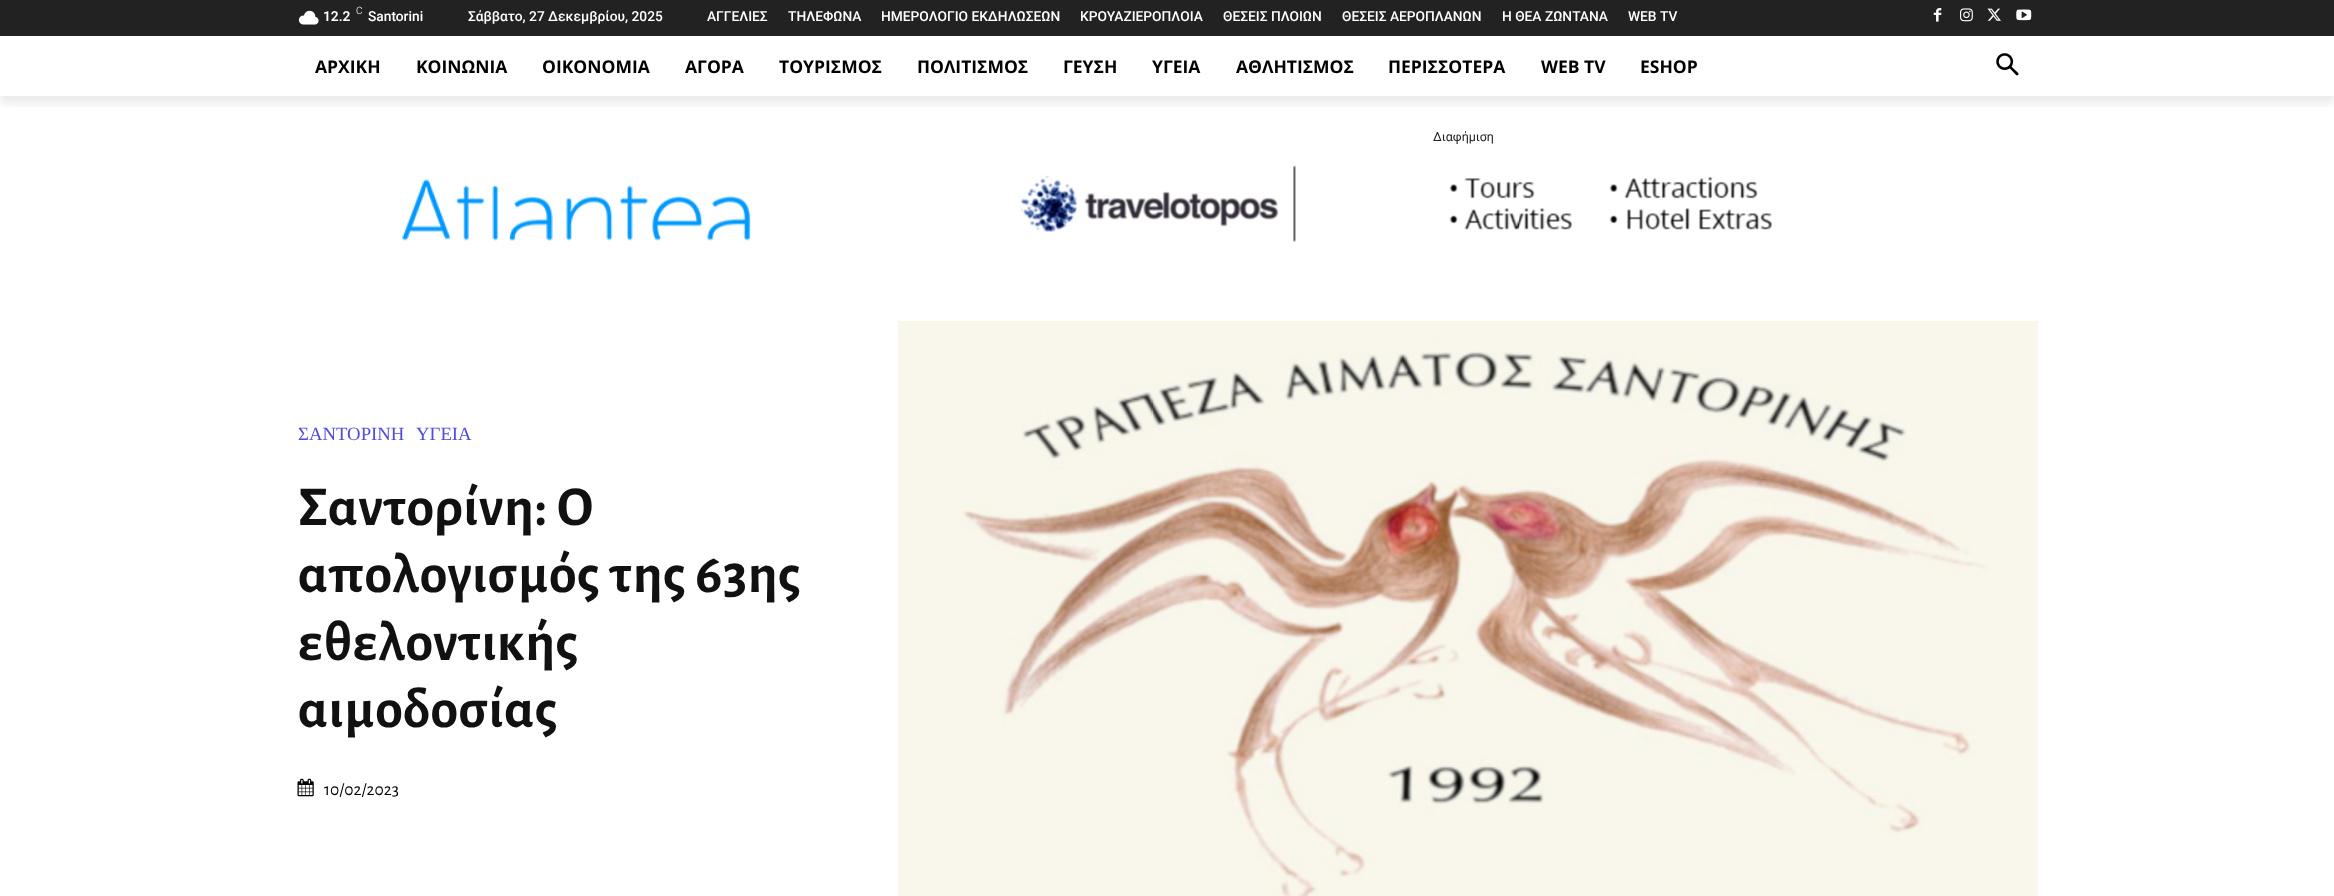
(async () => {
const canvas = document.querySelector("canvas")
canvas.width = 2334
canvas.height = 896
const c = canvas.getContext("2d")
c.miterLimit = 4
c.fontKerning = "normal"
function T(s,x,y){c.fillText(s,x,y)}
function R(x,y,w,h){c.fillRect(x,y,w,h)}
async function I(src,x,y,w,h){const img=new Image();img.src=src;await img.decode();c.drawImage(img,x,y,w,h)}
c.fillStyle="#fff"
R(0,0,2334,896)
c.fillStyle="#222"
R(0,0,2334,36)
await I("1.png",298,10,21,15)
c.font="600 13.75px Roboto"
c.fillStyle="#fff"
T("12.2",323,21)
c.font="300 10px Roboto"
T("C",356,14)
c.font="500 13.75px Roboto"
T("Santorini",368,21)
T("Σάββατο, 27 Δεκεμβρίου, 2025",468,21)
T("ΑΓΓΕΛΙΕΣ",707,21)
T("ΤΗΛΕΦΩΝΑ",788,21)
T("ΗΜΕΡΟΛΟΓΙΟ ΕΚΔΗΛΩΣΕΩΝ",881,21)
T("ΚΡΟΥΑΖΙΕΡΟΠΛΟΙΑ",1080,21)
T("ΘΕΣΕΙΣ ΠΛΟΙΩΝ",1223,21)
T("ΘΕΣΕΙΣ ΑΕΡΟΠΛΑΝΩΝ",1342,21)
T("Η ΘΕΑ ΖΩΝΤΑΝΑ",1502,21)
T("WEB TV",1628,21)
await I("2.png",1933,8,9,14)
await I("3.png",1960,8,13,14)
await I("4.png",1987,8,14,13)
await I("5.png",2016,9,16,12)
c.save()
c.beginPath()
c.rect(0,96,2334,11)
c.clip()
c.fillStyle="#00000014"
c.filter="blur(5px)"
c.beginPath()
c.rect(0,44,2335,60)
c.fill()
c.filter="none"
c.restore()
c.font="bold 17.5px Open Sans"
c.fillStyle="#000"
T("ΑΡΧΙΚΗ",315,73)
T("ΚΟΙΝΩΝΙΑ",416,73)
T("ΟΙΚΟΝΟΜΙΑ",542,73)
T("ΑΓΟΡΑ",685,73)
T("ΤΟΥΡΙΣΜΟΣ",779,73)
T("ΠΟΛΙΤΙΣΜΟΣ",917,73)
T("ΓΕΥΣΗ",1063,73)
T("ΥΓΕΙΑ",1152,73)
T("ΑΘΛΗΤΙΣΜΟΣ",1236,73)
T("ΠΕΡΙΣΣΟΤΕΡΑ",1388,73)
T("WEB TV",1541,73)
T("ESHOP",1640,73)
await I("6.png",1996,53,23,23)
c.font="12.5px Roboto"
c.fillStyle="#222"
T("Διαφήμιση",1433,141)
await I("7.png",1020,165,752,77)
await I("8.png",402,179,349,62)
c.font="18.75px Liberation Serif"
c.fillStyle="#504bdc"
T("ΣΑΝΤΟΡΙΝΗ",298,440)
T("ΥΓΕΙΑ",416,440)
c.letterSpacing="0.6px"
c.font="bold 56.25px Alegreya Sans"
c.fillStyle="#111"
T("Σαντορίνη: Ο",298,525)
T("απολογισμός της 63ης",298,592)
T("εθελοντικής",298,660)
T("αιμοδοσίας",298,727)
await I("9.png",297,778,17,19)
c.letterSpacing="0px"
c.font="17.5px Alegreya Sans"
c.fillStyle="#000"
T("10/02/2023",324,795)
await I("10.png",898,321,1140,575)
})()
